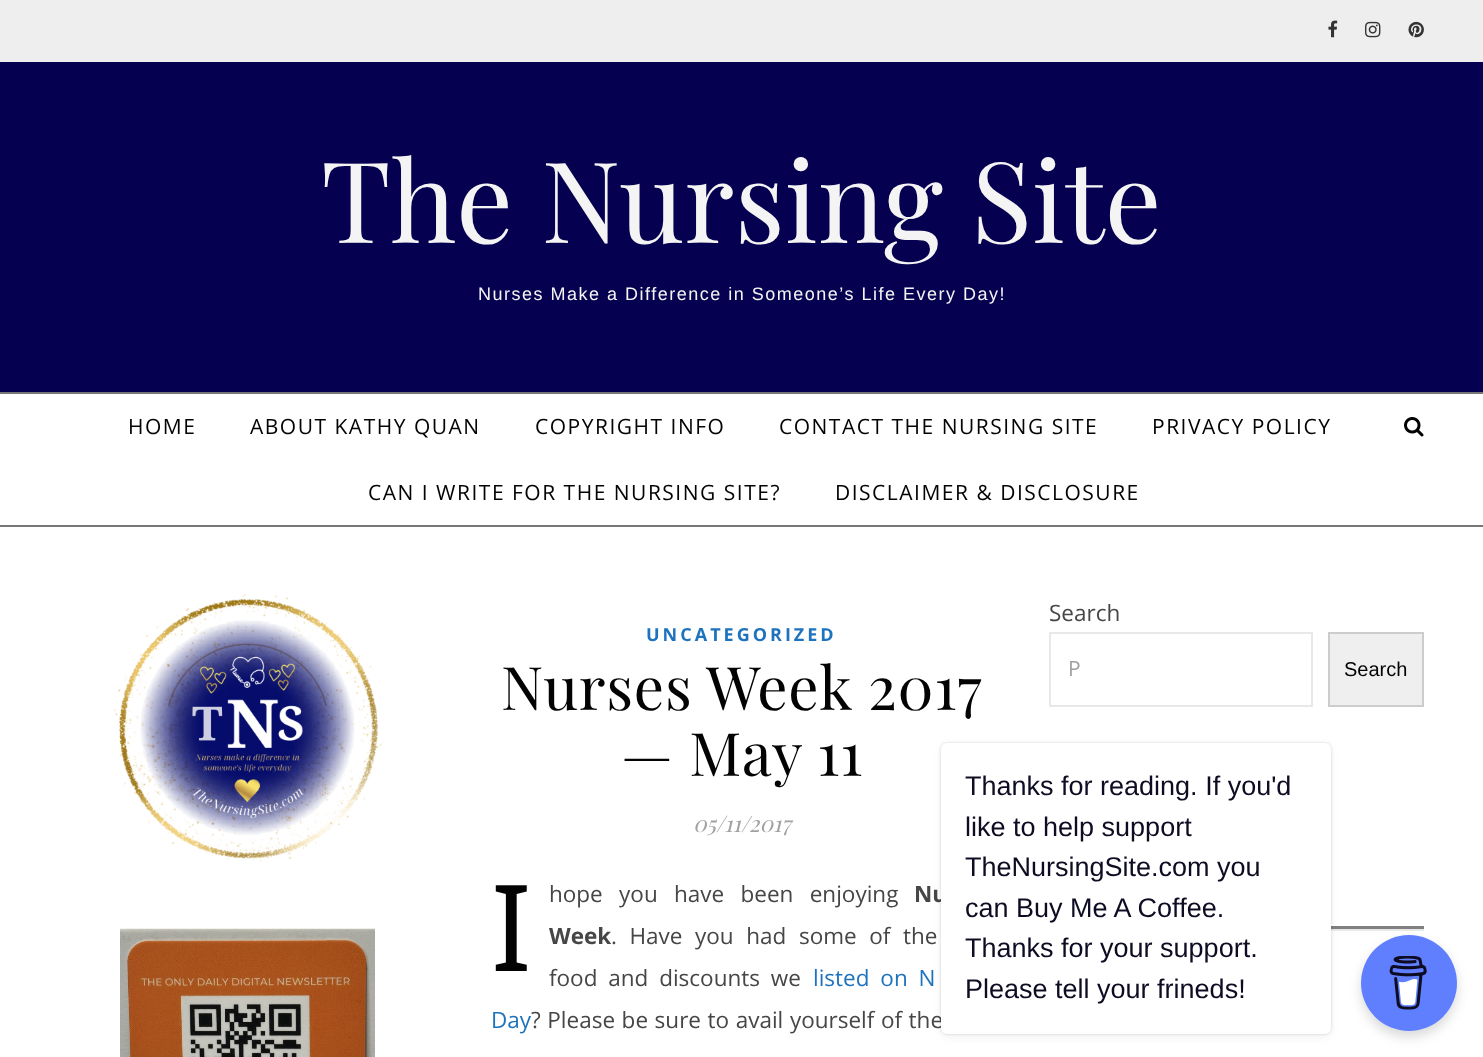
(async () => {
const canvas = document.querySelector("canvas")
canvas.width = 1483
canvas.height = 1057
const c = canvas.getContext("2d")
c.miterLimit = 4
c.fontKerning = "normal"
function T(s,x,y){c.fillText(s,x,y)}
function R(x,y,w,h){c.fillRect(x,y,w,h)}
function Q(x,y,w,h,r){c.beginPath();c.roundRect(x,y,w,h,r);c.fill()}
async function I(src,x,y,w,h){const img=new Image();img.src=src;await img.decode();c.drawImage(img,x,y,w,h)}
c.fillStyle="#fff"
R(0,0,1483,1057)
c.fillStyle="#eee"
R(0,0,1483,62)
await I("1.png",1328,20,10,18)
await I("2.png",1365,21,16,17)
await I("3.png",1408,21,16,17)
c.fillStyle="#05004f"
R(0,62,1483,330)
c.font="112.5px Playfair Display"
c.fillStyle="#f4f4f4"
T("The Nursing Site",321,243)
c.letterSpacing="1.5px"
c.font="18px Liberation Sans"
T("Nurses Make a Difference in Someone’s Life Every Day!",478,300)
c.fillStyle="#777"
R(0,392,1483,2)
R(0,525,1483,2)
c.font="21px Open Sans"
c.fillStyle="#030303"
T("HOME",128,434)
T("ABOUT KATHY QUAN",250,434)
T("COPYRIGHT INFO",535,434)
T("CONTACT THE NURSING SITE",779,434)
T("PRIVACY POLICY",1152,434)
T("CAN I WRITE FOR THE NURSING SITE?",368,500)
T("DISCLAIMER & DISCLOSURE",835,500)
await I("4.png",1404,417,20,20)
await I("5.png",113,594,269,268)
await I("6.png",120,928,255,129)
c.letterSpacing="3px"
c.font="bold 18px Open Sans"
c.fillStyle="#1e73be"
T("UNCATEGORIZED",646,641)
c.letterSpacing="0.75px"
c.font="60px Playfair Display"
c.fillStyle="#030303"
T("Nurses Week 2017",501,710)
T("— May 11",621,776)
c.letterSpacing="0px"
c.font="italic 22.5px Playfair Display"
c.fillStyle="#a1a1a1"
T("05/11/2017",693,832)
c.font="120px Noto Sans"
c.fillStyle="#030303"
T("I",491,971)
c.wordSpacing="10.5px"
c.font="22.5px Open Sans"
c.fillStyle="#464646"
T("hope you have been enjoying",549,902)
c.wordSpacing="0px"
c.font="bold 22.5px Open Sans"
T("Nu",914,902)
T("Week",549,944)
c.wordSpacing="6.75px"
c.font="22.5px Open Sans"
T(". Have you had some of the",611,944)
c.wordSpacing="5px"
T("food and discounts we",549,986)
c.fillStyle="#1e73be"
T("listed on N",813,986)
c.wordSpacing="0px"
T("Day",491,1028)
c.wordSpacing="0.75px"
c.fillStyle="#464646"
T("? Please be sure to avail yourself of the",531,1028)
c.wordSpacing="0px"
T("Search",1049,621)
c.strokeStyle="#e8e8e8"
c.lineWidth=2
c.strokeRect(1050,633,262,73)
c.font="21px Open Sans"
c.fillStyle="#a1a1a1"
T("P",1068,676)
c.fillStyle="#efefef"
c.beginPath()
c.rect(1329,633,94,73)
c.fill()
c.strokeStyle="#ccc"
c.stroke()
c.font="20px Liberation Sans"
c.fillStyle="#030303"
T("Search",1344,676)
c.fillStyle="#e8e8e8"
R(1331,929,93,2)
c.fillStyle="#808080"
R(1331,926,93,3)
c.fillStyle="#00000026"
c.filter="blur(1.5px)"
c.beginPath()
c.roundRect(941,743,390,291,6)
c.fill()
c.filter="none"
c.fillStyle="#0000000d"
c.filter="blur(4px)"
c.beginPath()
c.roundRect(941,746,390,291,6)
c.fill()
c.filter="none"
c.fillStyle="#fff"
Q(941,743,390,291,6)
c.font="27px Liberation Sans"
c.fillStyle="#0d0c22"
T("Thanks for reading. If you'd",965,795)
T("like to help support",965,836)
T("TheNursingSite.com you",965,876)
T("can Buy Me A Coffee.",965,917)
T("Thanks for your support.",965,957)
T("Please tell your frineds!",965,998)
c.fillStyle="#00000026"
c.filter="blur(6px)"
c.beginPath()
c.roundRect(1361,941,96,96,48)
c.fill()
c.filter="none"
c.fillStyle="#5f7fff"
c.beginPath()
c.arc(1409,983,48,0,7)
c.fill()
await I("7.png",1389,956,38,54)
})()
